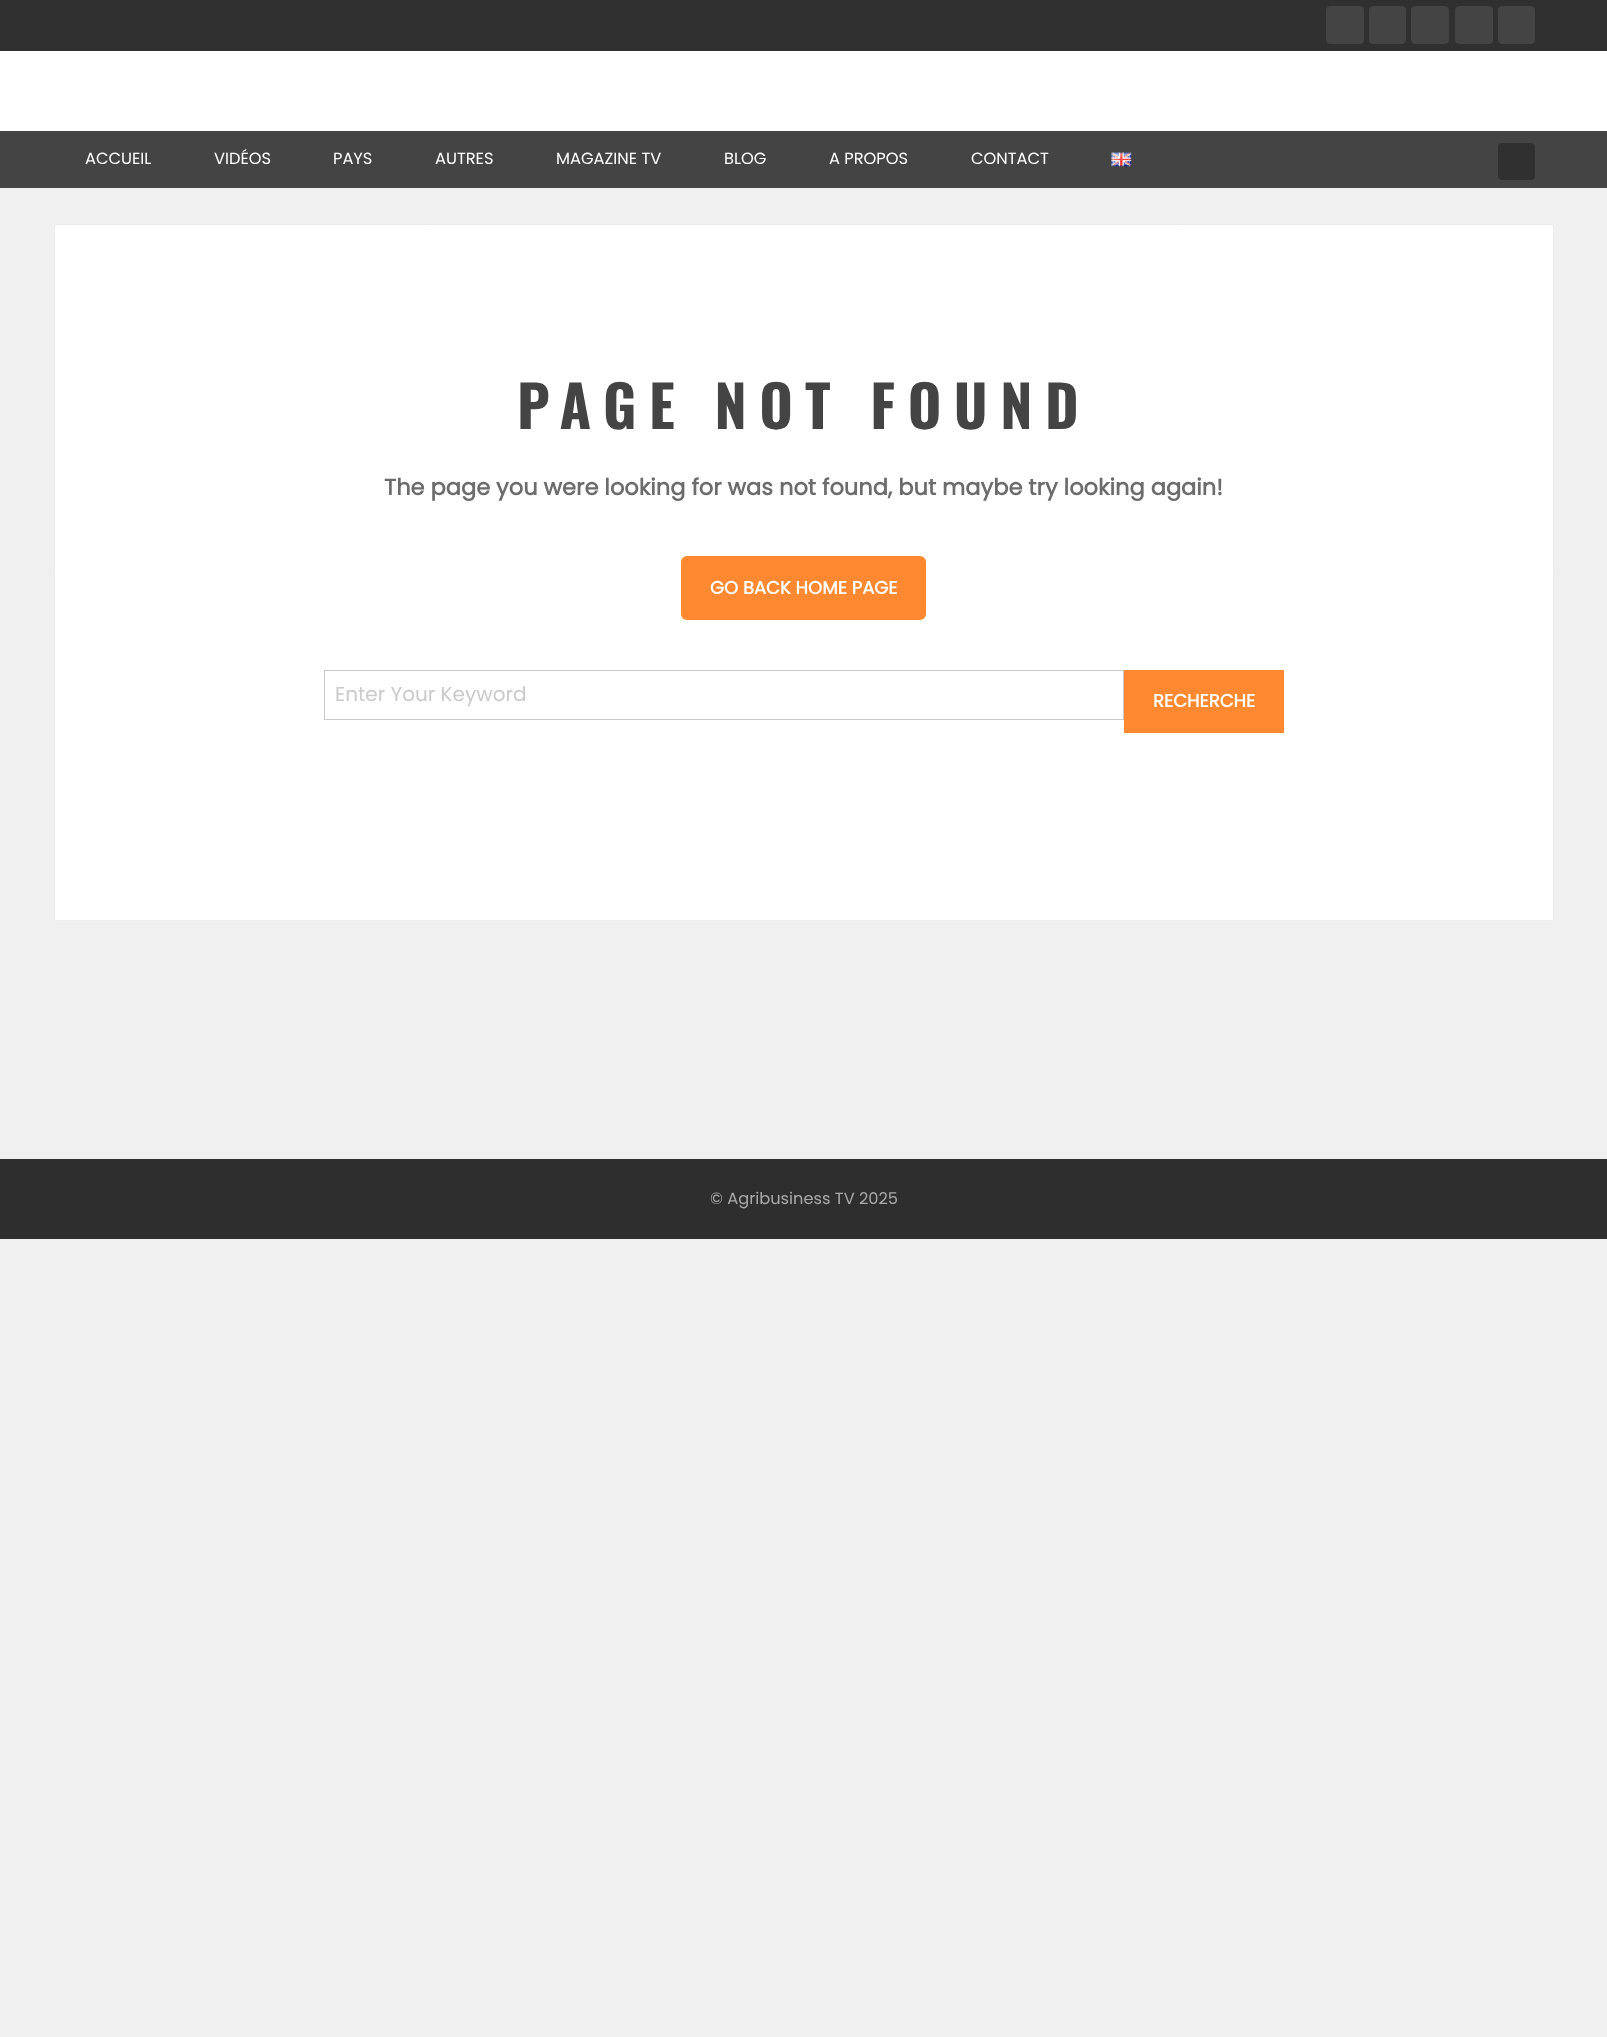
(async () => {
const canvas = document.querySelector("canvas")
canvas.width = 1607
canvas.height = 2037
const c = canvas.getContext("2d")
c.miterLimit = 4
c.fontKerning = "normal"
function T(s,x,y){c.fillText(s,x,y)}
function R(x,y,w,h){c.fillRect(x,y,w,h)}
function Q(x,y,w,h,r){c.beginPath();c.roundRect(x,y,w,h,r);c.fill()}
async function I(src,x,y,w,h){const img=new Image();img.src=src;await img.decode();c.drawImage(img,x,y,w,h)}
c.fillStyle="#f0f0f0"
R(0,0,1607,2037)
c.fillStyle="#303030"
R(0,0,1607,51)
c.fillStyle="#444"
c.beginPath()
c.roundRect(1326.5,6.5,37,37,3.5)
c.fill()
c.strokeStyle="#444"
c.stroke()
c.beginPath()
c.roundRect(1369.5,6.5,36,37,3.5)
c.fill()
c.stroke()
c.beginPath()
c.roundRect(1411.5,6.5,37,37,3.5)
c.fill()
c.stroke()
c.beginPath()
c.roundRect(1455.5,6.5,37,37,3.5)
c.fill()
c.stroke()
c.beginPath()
c.roundRect(1498.5,6.5,36,37,3.5)
c.fill()
c.stroke()
c.fillStyle="#fff"
R(0,51,1607,80)
c.fillStyle="#444"
R(0,131,1607,57)
c.font="16.25px Poppins"
c.fillStyle="#fff"
T("ACCUEIL",85,164)
T("VIDÉOS",214,164)
T("PAYS",333,164)
T("AUTRES",435,164)
T("MAGAZINE TV",556,164)
T("BLOG",724,164)
T("A PROPOS",829,164)
T("CONTACT",971,164)
await I("1.png",1111,152,21,15)
c.fillStyle="#303030"
c.beginPath()
c.roundRect(1498.5,143.5,36,36,3.5)
c.fill()
c.strokeStyle="#303030"
c.stroke()
c.fillStyle="#fff"
c.beginPath()
c.rect(54.5,224.5,1499,696)
c.fill()
c.strokeStyle="#ececec"
c.stroke()
c.letterSpacing="12.5px"
c.font="bold 57.5px Oswald"
c.fillStyle="#444"
T("PAGE NOT FOUND",517,429)
c.letterSpacing="0px"
c.font="bold 22.5px Poppins"
c.fillStyle="#6c6c6c"
T("The page you were looking for was not found, but maybe try looking again!",384,495)
c.fillStyle="#ff8930"
Q(681,556,245,64,6)
c.font="bold 18px Poppins"
c.fillStyle="#fff"
T("GO BACK HOME PAGE",710,594)
c.strokeStyle="#cacaca"
c.strokeRect(324.5,670.5,799,49)
c.font="20px Poppins"
c.fillStyle="#cacaca"
T("Enter Your Keyword",335,701)
c.fillStyle="#ff8930"
R(1124,670,160,63)
c.font="bold 18px Poppins"
c.fillStyle="#fff"
T("RECHERCHE",1153,707)
c.fillStyle="#2e2e2e"
R(0,1159,1607,80)
c.font="16.25px Poppins"
c.fillStyle="#aaa"
T("© Agribusiness TV 2025",710,1204)
})()
